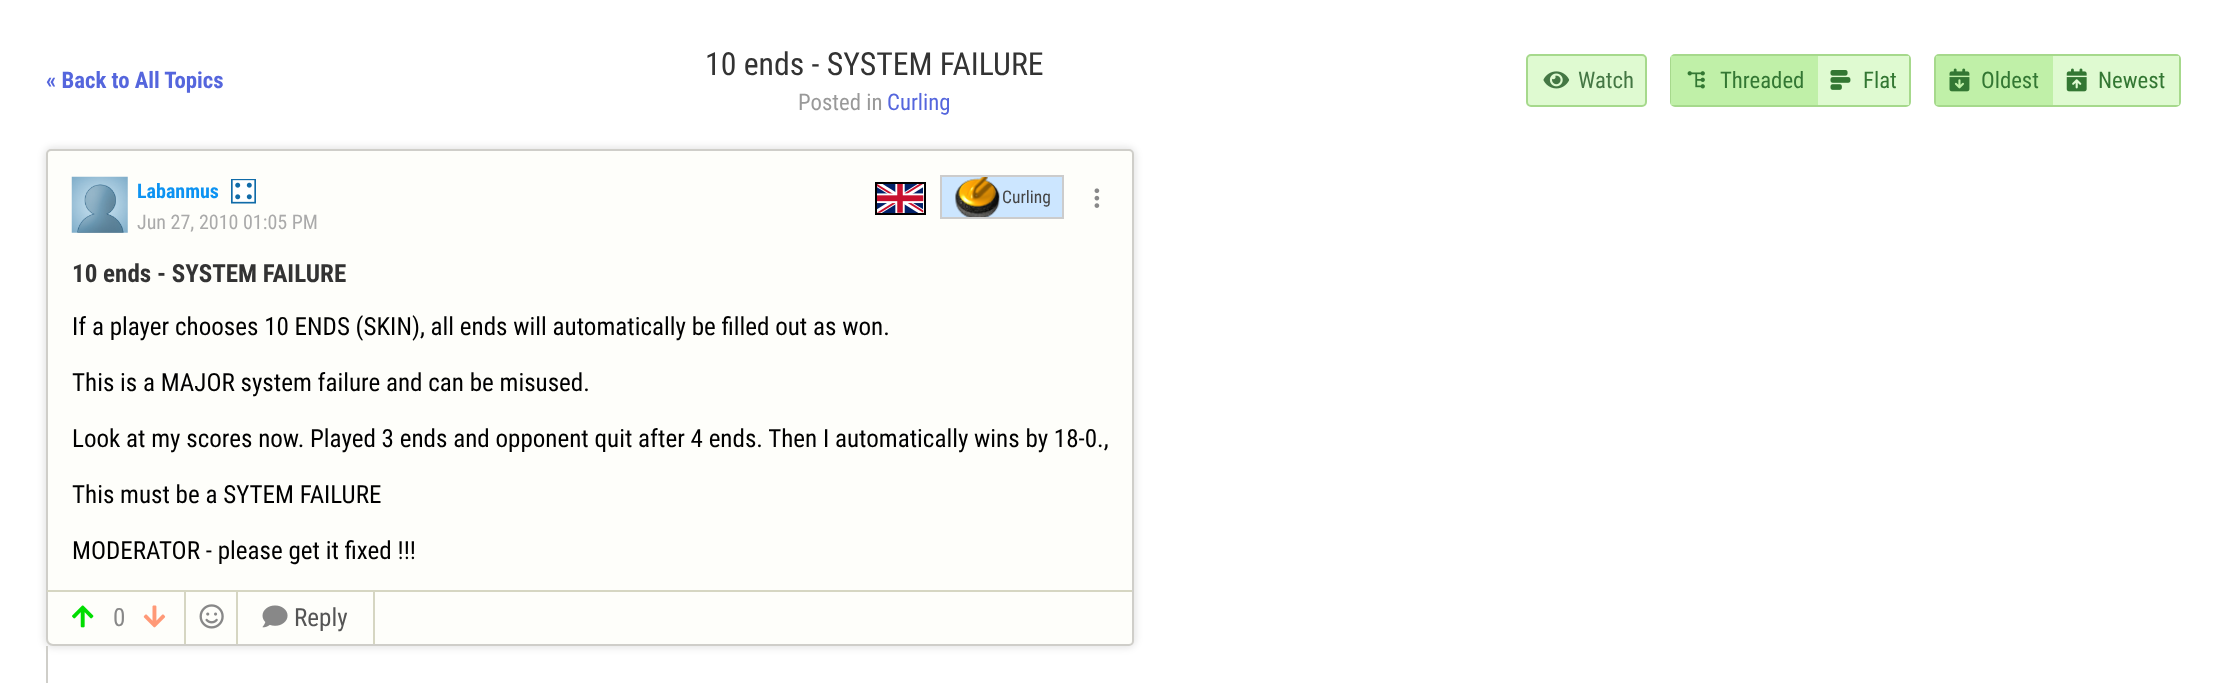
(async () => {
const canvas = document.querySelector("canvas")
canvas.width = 2226
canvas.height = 683
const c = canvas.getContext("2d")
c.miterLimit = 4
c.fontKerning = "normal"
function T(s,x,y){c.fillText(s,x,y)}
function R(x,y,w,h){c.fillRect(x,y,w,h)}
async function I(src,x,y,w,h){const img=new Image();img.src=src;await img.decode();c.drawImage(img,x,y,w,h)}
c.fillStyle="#fff"
R(0,0,2226,683)
c.font="bold 22.75px Roboto Condensed"
c.fillStyle="#56d"
T("« Back to All Topics",46,88)
c.font="31.8px Roboto Condensed"
c.fillStyle="#333"
T("10 ends - SYSTEM FAILURE",705,75)
c.font="22.75px Roboto Condensed"
c.fillStyle="#999"
T("Posted in",798,110)
c.fillStyle="#56d"
T("Curling",887,110)
c.fillStyle="#dffad1"
c.beginPath()
c.roundRect(1527,55,119,51,4)
c.fill()
c.strokeStyle="#a6d98c"
c.lineWidth=2
c.stroke()
await I("1.png",1543,71,27,18)
c.fillStyle="#474"
T("Watch",1578,88)
c.beginPath()
c.roundRect(1671,55,239,51,4)
c.stroke()
c.fillStyle="#c0f0a8"
R(1671,56,147,49)
await I("2.png",1687,71,18,18)
c.fillStyle="#373"
T("Threaded",1720,88)
c.fillStyle="#dffad1"
R(1818,56,91,49)
await I("3.png",1830,70,21,20)
c.fillStyle="#373"
T("Flat",1863,88)
c.beginPath()
c.roundRect(1935,55,245,51,4)
c.stroke()
c.fillStyle="#c0f0a8"
R(1936,56,117,49)
await I("4.png",1949,68,21,24)
c.fillStyle="#373"
T("Oldest",1981,88)
c.fillStyle="#dffad1"
R(2053,56,126,49)
await I("5.png",2066,68,21,24)
c.fillStyle="#373"
T("Newest",2098,88)
c.fillStyle="#0000001a"
c.filter="blur(3.5px)"
c.beginPath()
c.roundRect(44,147,1092,501,9)
c.fill()
c.filter="none"
c.fillStyle="#fefefa"
c.beginPath()
c.roundRect(47,150,1086,495,[4,4,4,6])
c.fill()
c.strokeStyle="#cfcec9"
c.stroke()
await I("6.png",71,176,57,57)
c.font="bold 20px Roboto Condensed"
c.fillStyle="#0d93f2"
T("Labanmus",137,198)
await I("7.png",231,179,25,25)
c.font="20px Roboto Condensed"
c.fillStyle="#aaa"
T("Jun 27, 2010 01:05 PM",137,229)
await I("8.png",877,184,47,29)
c.strokeStyle="#000"
c.strokeRect(876,183,49,31)
c.fillStyle="#cce6ff"
R(942,177,120,40)
await I("9.png",955,177,45,40)
c.strokeStyle="#ccc"
c.strokeRect(941,176,122,42)
c.font="17.5px Roboto Condensed"
c.fillStyle="#444"
T("Curling",1002,203)
await I("10.png",1094,188,6,20)
c.font="bold 25.05px Roboto Condensed"
c.fillStyle="#333"
T("10 ends - SYSTEM FAILURE",72,282)
c.font="25.05px Roboto Condensed"
c.fillStyle="#000"
T("If a player chooses 10 ENDS (SKIN), all ends will automatically be filled out as won.",72,335)
T("This is a MAJOR system failure and can be misused.",72,391)
T("Look at my scores now. Played 3 ends and opponent quit after 4 ends. Then I automatically wins by 18-0.,",72,447)
T("This must be a SYTEM FAILURE",72,503)
T("MODERATOR - please get it fixed !!!",72,559)
c.fillStyle="#d6d6c2"
R(47,590,1085,2)
await I("11.png",72,605,22,23)
c.fillStyle="#888"
T("0",113,626)
await I("12.png",143,605,23,23)
c.fillStyle="#d6d6c2"
R(184,592,2,52)
await I("13.png",199,604,25,25)
R(373,592,2,52)
R(236,592,2,52)
await I("14.png",262,605,26,23)
c.fillStyle="#555"
T("Reply",294,626)
c.fillStyle="#cfcec9"
R(46,646,2,37)
})()
